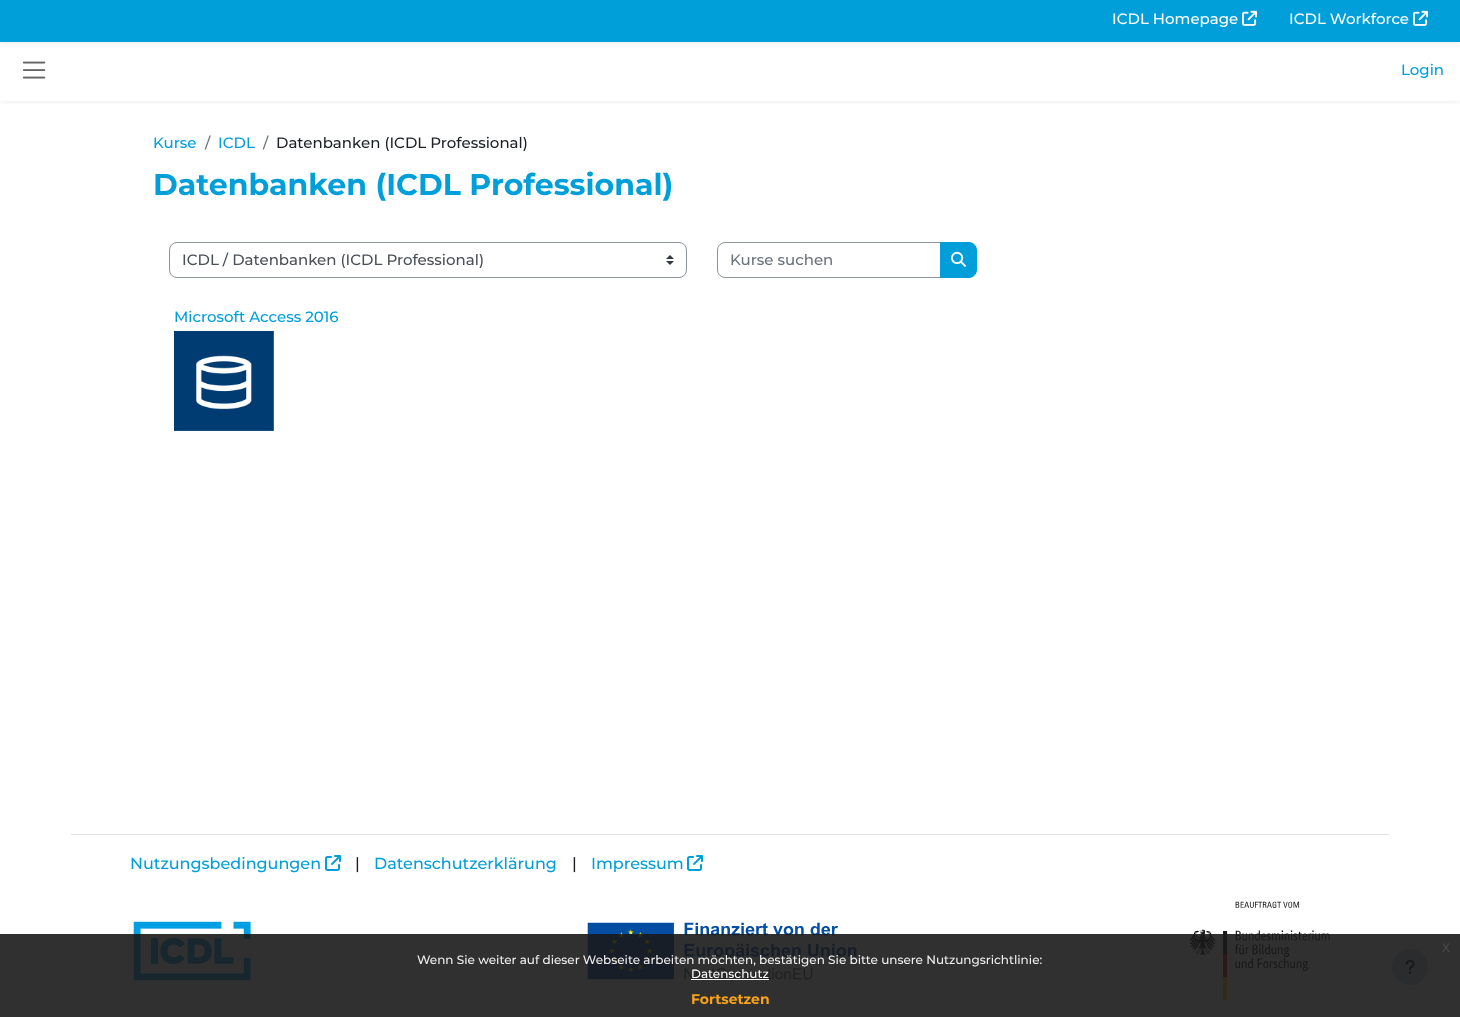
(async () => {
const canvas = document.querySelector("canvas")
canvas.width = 1460
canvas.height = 1017
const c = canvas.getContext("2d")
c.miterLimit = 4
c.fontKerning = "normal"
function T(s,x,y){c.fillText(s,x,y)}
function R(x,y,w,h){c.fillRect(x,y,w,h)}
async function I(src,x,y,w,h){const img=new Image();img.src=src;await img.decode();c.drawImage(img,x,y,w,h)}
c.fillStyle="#fff"
R(0,0,1460,1017)
c.fillStyle="#0000001a"
c.filter="blur(3.5px)"
c.beginPath()
c.rect(0,0,1460,42)
c.fill()
c.filter="none"
c.save()
c.beginPath()
c.rect(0,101,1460,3)
c.clip()
c.filter="blur(3.5px)"
c.beginPath()
c.rect(0,40,1460,61)
c.fill()
c.filter="none"
c.restore()
c.fillStyle="#009fda"
R(0,0,1460,42)
c.font="100 15px Montserrat"
c.fillStyle="#fff"
T("ICDL Homepage",1112,24)
await I("1.png",1242,10,15,16)
T("ICDL Workforce",1289,24)
await I("1.png",1413,10,15,16)
await I("2.png",22,61,24,18)
c.fillStyle="#009fda"
T("Login",1401,75)
T("Kurse",153,148)
c.fillStyle="#6a737b"
T("/",205,148)
c.fillStyle="#009fda"
T("ICDL",218,148)
c.fillStyle="#6a737b"
T("/",263,148)
c.fillStyle="#1d2125"
T("Datenbanken (ICDL Professional)",276,148)
c.font="100 30px 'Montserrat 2'"
c.fillStyle="#009fda"
T("Datenbanken (ICDL Professional)",153,195)
await I("3.png",666,255,8,10)
c.beginPath()
c.roundRect(169.5,242.5,517,35,7.5)
c.strokeStyle="#8f959e"
c.stroke()
c.font="100 15px Montserrat"
c.fillStyle="#495057"
T("ICDL / Datenbanken (ICDL Professional)",182,265)
c.beginPath()
c.roundRect(717.5,242.5,223,35,[7.5,0,0,7.5])
c.stroke()
c.fillStyle="#6a737b"
T("Kurse suchen",730,265)
c.fillStyle="#009fda"
c.beginPath()
c.roundRect(940.5,242.5,36,35,[0,7.5,7.5,0])
c.fill()
c.strokeStyle="#009fda"
c.stroke()
await I("4.png",951,251,15,16)
T("Microsoft Access 2016",174,322)
await I("5.png",174,331,100,100)
c.fillStyle="#dee2e6"
R(71,834,1318,1)
c.font="100 16px Montserrat"
c.fillStyle="#009fda"
T("Nutzungsbedingungen",130,869)
await I("6.png",325,855,16,16)
c.fillStyle="#1d2125"
T("|",355,869)
c.fillStyle="#009fda"
T("Datenschutzerklärung",374,869)
c.fillStyle="#1d2125"
T("|",572,869)
c.fillStyle="#009fda"
T("Impressum",591,869)
await I("6.png",687,855,16,16)
await I("7.png",133,921,118,60)
await I("8.png",587,922,270,58)
await I("9.png",1189,901,141,100)
c.fillStyle="#ced4da"
c.beginPath()
c.arc(1410,967,18,0,7)
c.fill()
await I("10.png",1405,960,10,14)
c.fillStyle="#191919e6"
R(0,934,1460,83)
c.font="16px Liberation Sans"
c.fillStyle="#474747"
T("x",1442,952)
c.font="100 12px Montserrat"
c.fillStyle="#efefef"
T("Wenn Sie weiter auf dieser Webseite arbeiten möchten, bestätigen Sie bitte unsere Nutzungsrichtlinie:",417,964)
c.fillStyle="#fff"
T("Datenschutz",691,978)
R(691,979,78,1)
c.font="100 14px 'Montserrat 2'"
c.fillStyle="#f6a21d"
T("Fortsetzen",691,1004)
})()
